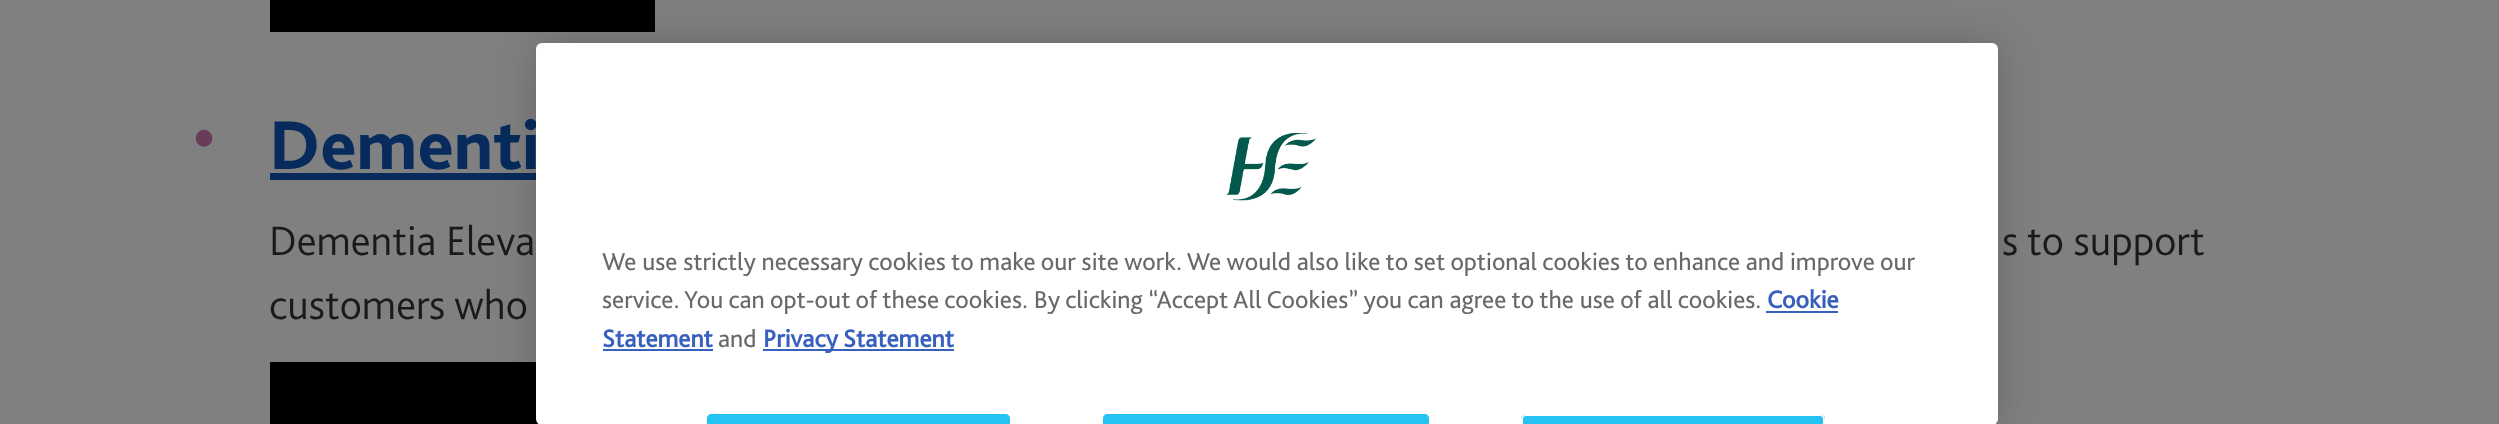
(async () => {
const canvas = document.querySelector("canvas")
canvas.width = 2499
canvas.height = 424
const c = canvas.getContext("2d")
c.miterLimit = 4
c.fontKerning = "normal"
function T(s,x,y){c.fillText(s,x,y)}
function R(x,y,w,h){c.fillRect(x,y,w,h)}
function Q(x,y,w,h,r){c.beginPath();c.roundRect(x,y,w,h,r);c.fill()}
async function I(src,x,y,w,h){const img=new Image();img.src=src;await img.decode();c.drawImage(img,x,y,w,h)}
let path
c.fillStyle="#808080"
R(0,0,2499,424)
c.fillStyle="#000"
R(270,0,385,32)
c.font="300 81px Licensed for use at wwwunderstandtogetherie"
c.fillStyle="#683c58"
T("•",192,164)
c.font="800 72px Licensed for use at wwwunderstandtogetherie"
c.fillStyle="#062b5c"
T("Dementi",269,169)
R(270,173,266,7)
c.font="300 42.75px Licensed for use at wwwunderstandtogetherie"
c.fillStyle="#1a1a1a"
T("Dementia Eleva",269,255)
T("s to support",2002,255)
T("customers who",269,319)
c.fillStyle="#000"
R(270,362,269,62)
c.fillStyle="#00000033"
c.filter="blur(20px)"
c.beginPath()
c.roundRect(536,43,1462,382,6)
c.fill()
c.filter="none"
c.fillStyle="#fff"
Q(536,43,1462,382,6)
await I("1.png",1226,133,90,68)
c.font="25.6px Licensed for use at wwwunderstandtogetherie"
c.fillStyle="#696969"
T("We use strictly necessary cookies to make our site work. We would also like to set optional cookies to enhance and improve our",602,270)
T("service. You can opt-out of these cookies. By clicking “Accept All Cookies” you can agree to the use of all cookies.",602,308)
c.font="bold 25.6px Licensed for use at wwwunderstandtogetherie"
c.fillStyle="#3860be"
T("Cookie",1767,308)
R(1766,311,72,2)
T("Statement",602,347)
R(603,349,110,2)
c.font="25.6px Licensed for use at wwwunderstandtogetherie"
c.fillStyle="#696969"
T("and",718,347)
c.fillStyle="#3860be"
R(763,349,191,2)
c.font="bold 25.6px Licensed for use at wwwunderstandtogetherie"
T("Privacy Statement",763,347)
c.fillStyle="#24c3f3"
path = new Path2D("M712 414h293c3 0 5 2 5 5v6h-303v-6c0-3 2-5 5-5z")
c.fill(path)
path = new Path2D("M712 414c-6 0-5 7-5 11h2v-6c0-2 1-3 3-3h293c2 0 3 1 3 3v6h2c0-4 1-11-5-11z")
c.fill(path)
path = new Path2D("M1108 414h316c3 0 5 2 5 5v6h-326v-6c0-3 2-5 5-5z")
c.fill(path)
path = new Path2D("M1108 414c-6 0-5 7-5 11h2v-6c0-2 1-3 3-3h316c2 0 3 1 3 3v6h2c0-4 1-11-5-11z")
c.fill(path)
path = new Path2D("M1526 414h294c3 0 5 2 5 5v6h-304v-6c0-3 2-5 5-5z")
c.fill(path)
c.fillStyle="#fff"
path = new Path2D("M1526 414c-6 0-5 7-5 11h2v-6c0-2 1-3 3-3h294c2 0 3 1 3 3v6h2c0-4 1-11-5-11z")
c.fill(path)
})()
